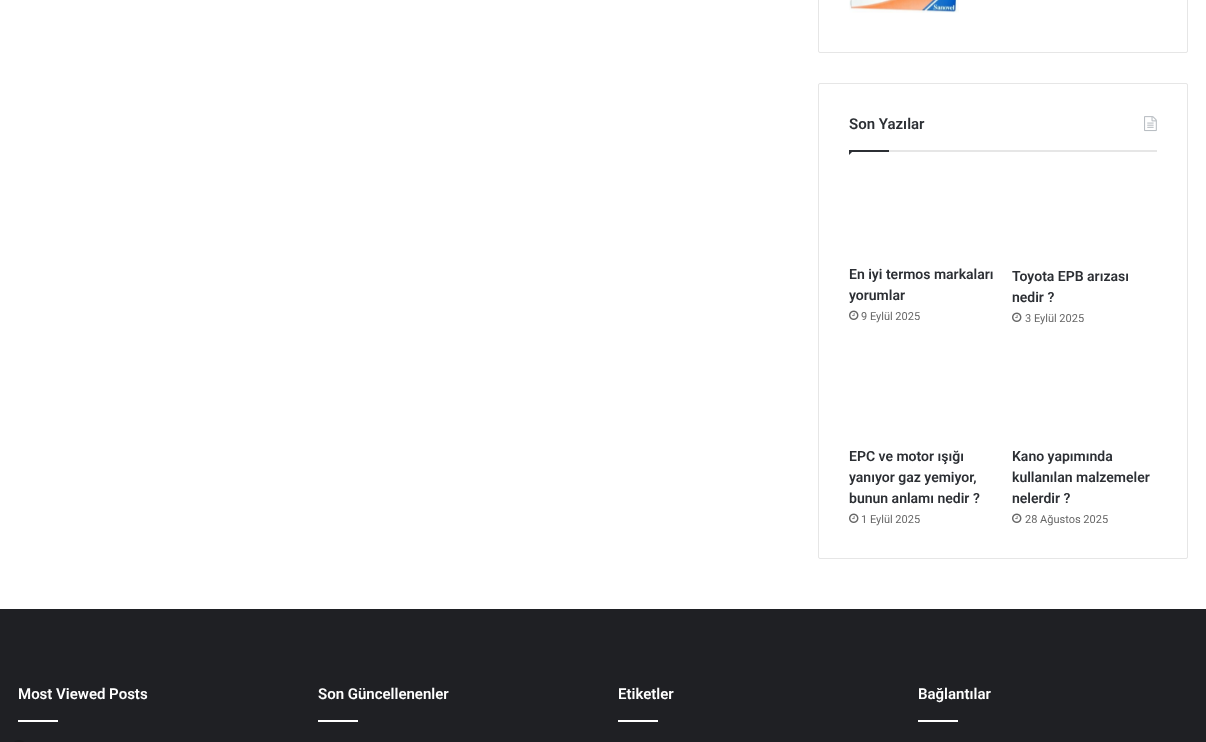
(async () => {
const canvas = document.querySelector("canvas")
canvas.width = 1206
canvas.height = 742
const c = canvas.getContext("2d")
c.miterLimit = 4
c.fontKerning = "normal"
function T(s,x,y){c.fillText(s,x,y)}
function R(x,y,w,h){c.fillRect(x,y,w,h)}
async function I(src,x,y,w,h){const img=new Image();img.src=src;await img.decode();c.drawImage(img,x,y,w,h)}
let path
c.fillStyle="#fff"
R(0,0,1206,742)
c.beginPath()
c.roundRect(818.5,-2.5,369,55,1.5)
c.strokeStyle="#e6e6e6"
c.stroke()
await I("1.png",849,0,110,13)
c.beginPath()
c.roundRect(818.5,83.5,369,475,1.5)
c.stroke()
c.fillStyle="#e6e6e6"
R(889,150,268,2)
c.font="600 15px Roboto"
c.fillStyle="#2c2f34"
T("Son Yazılar",849,129)
await I("2.png",1144,116,13,16)
path = new Path2D("M849 150h5l-5 5z")
c.fill(path)
R(849,150,40,2)
c.font="600 14px Roboto"
T("En iyi termos markaları",849,279)
T("yorumlar",849,300)
await I("3.png",849,310,10,10)
c.font="11px Roboto"
c.fillStyle="#666"
T("9 Eylül 2025",861,320)
c.font="600 14px Roboto"
c.fillStyle="#2c2f34"
T("Toyota EPB arızası",1012,281)
T("nedir ?",1012,302)
await I("3.png",1012,312,10,10)
c.font="11px Roboto"
c.fillStyle="#666"
T("3 Eylül 2025",1025,322)
c.font="600 14px Roboto"
c.fillStyle="#2c2f34"
T("EPC ve motor ışığı",849,461)
T("yanıyor gaz yemiyor,",849,482)
T("bunun anlamı nedir ?",849,503)
await I("3.png",849,513,10,10)
c.font="11px Roboto"
c.fillStyle="#666"
T("1 Eylül 2025",861,523)
c.font="600 14px Roboto"
c.fillStyle="#2c2f34"
T("Kano yapımında",1012,461)
T("kullanılan malzemeler",1012,482)
T("nelerdir ?",1012,503)
await I("3.png",1012,513,10,10)
c.font="11px Roboto"
c.fillStyle="#666"
T("28 Ağustos 2025",1025,523)
c.fillStyle="#1f2024"
R(0,609,1206,133)
c.font="600 15px Roboto"
c.fillStyle="#fff"
T("Most Viewed Posts",18,699)
R(18,720,40,2)
c.beginPath()
c.roundRect(14.5,741.5,9,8,4.5)
c.strokeStyle="#1b1c1f"
c.lineWidth=3
c.stroke()
T("Son Güncellenenler",318,699)
R(318,720,40,2)
T("Etiketler",618,699)
R(618,720,40,2)
T("Bağlantılar",918,699)
R(918,720,40,2)
})()
